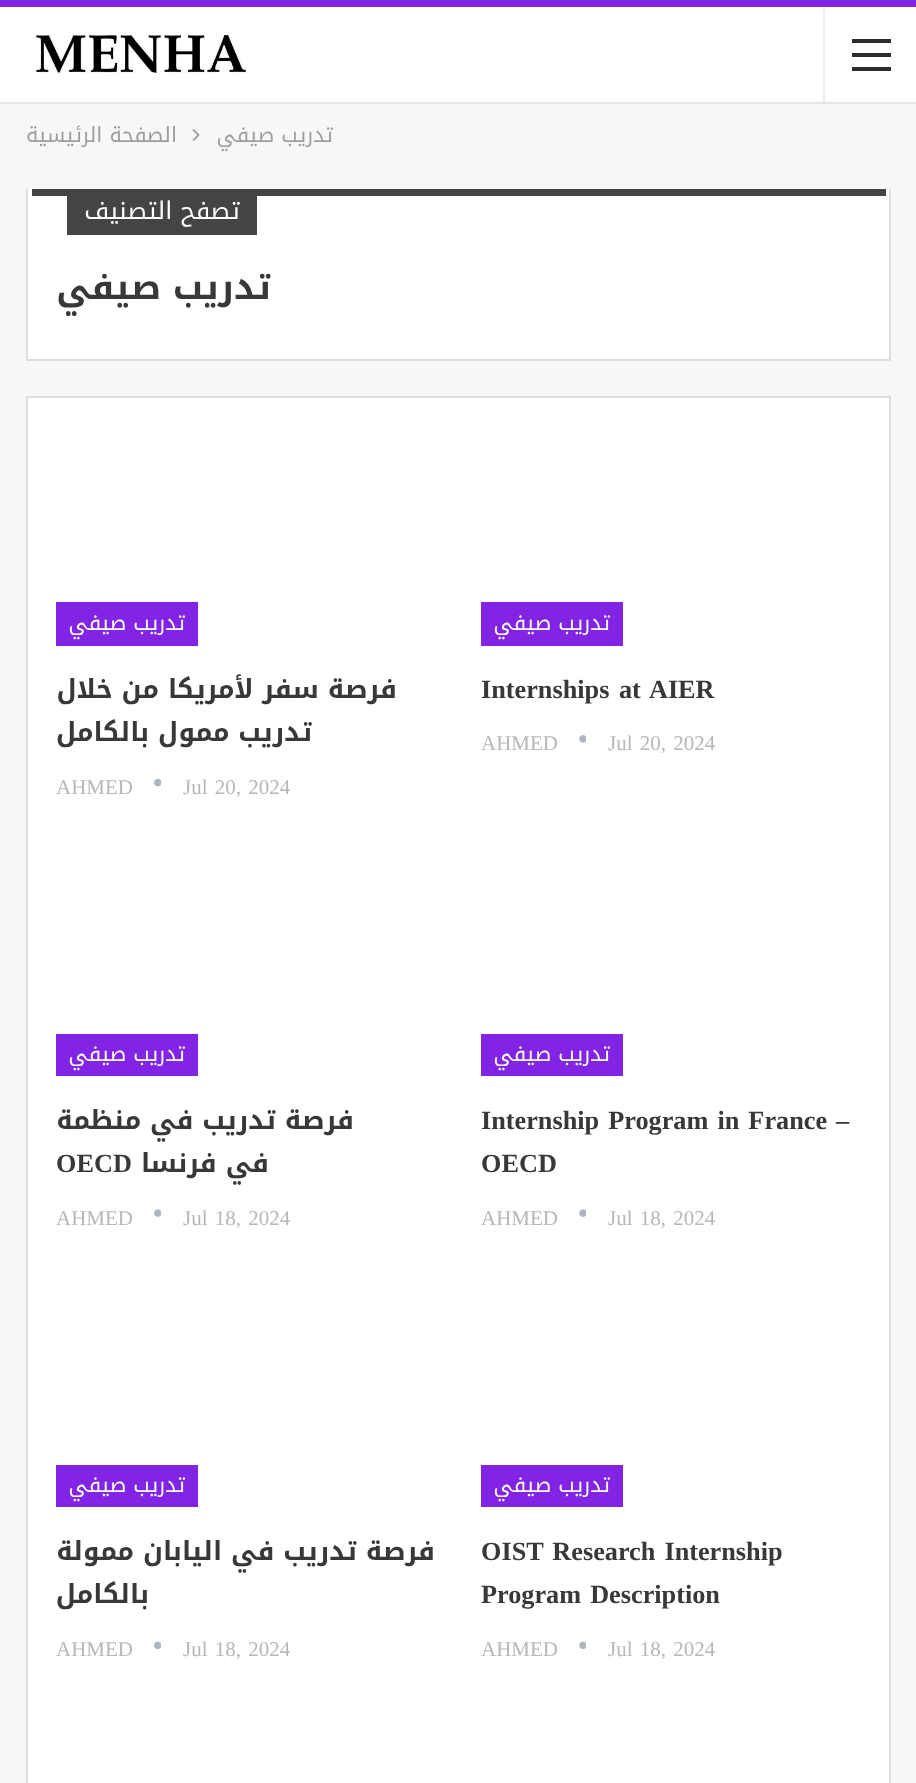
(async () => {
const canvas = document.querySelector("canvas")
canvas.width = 916
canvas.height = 1783
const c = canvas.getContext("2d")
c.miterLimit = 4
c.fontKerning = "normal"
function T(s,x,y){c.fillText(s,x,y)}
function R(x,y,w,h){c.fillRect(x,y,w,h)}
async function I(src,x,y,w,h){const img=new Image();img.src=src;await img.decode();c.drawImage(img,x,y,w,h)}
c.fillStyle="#8224e3"
R(0,0,916,1783)
c.fillStyle="#f7f7f7"
R(0,104,916,1679)
c.fillStyle="#fff"
R(0,7,916,95)
c.fillStyle="#e5e5e5"
R(0,102,916,2)
c.fillStyle="#ededed"
R(823,7,2,95)
c.fillStyle="#2c2c2c"
R(852,53,39,4)
R(852,39,39,4)
R(852,67,39,4)
await I("1.png",36,34,210,39)
c.direction="rtl"
c.font="21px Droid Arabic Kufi"
c.fillStyle="#9e9e9e"
T("تدريب صيفي",333,142)
await I("2.png",192,129,8,12)
T("الصفحة الرئيسية",177,142)
c.fillStyle="#fff"
R(28,189,861,170)
c.fillStyle="#dedede"
R(889,189,2,172)
R(26,359,865,2)
R(26,189,2,172)
c.fillStyle="#444"
R(32,189,854,7)
R(67,196,190,39)
c.font="24.5px Droid Arabic Kufi"
c.fillStyle="#fff"
T("تصفح التصنيف",240,219)
c.font="bold 35px Droid Arabic Kufi"
c.fillStyle="#383838"
T("تدريب صيفي",271,299)
c.fillStyle="#fff"
c.beginPath()
c.rect(27,397,863,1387)
c.fill()
c.strokeStyle="#dedede"
c.lineWidth=2
c.stroke()
c.fillStyle="#8224e3"
R(481,602,142,44)
c.font="21px Droid Arabic Kufi"
c.fillStyle="#fff"
T("تدريب صيفي",610,630)
c.wordSpacing="3px"
c.direction="ltr"
c.font="bold 26.25px Liberation Serif"
c.fillStyle="#383838"
T("Internships at AIER",481,698)
c.wordSpacing="2px"
c.font="21px Liberation Serif"
c.fillStyle="#b7b7b7"
T("Jul 20, 2024",608,750)
await I("3.png",579,735,7,8)
c.wordSpacing="0px"
T("AHMED",481,750)
c.fillStyle="#8224e3"
R(56,602,142,44)
c.direction="rtl"
c.font="21px Droid Arabic Kufi"
c.fillStyle="#fff"
T("تدريب صيفي",185,630)
c.font="bold 26.25px Droid Arabic Kufi"
c.fillStyle="#383838"
T("فرصة سفر لأمريكا من خلال",397,698)
T("تدريب ممول بالكامل",312,741)
c.wordSpacing="2px"
c.direction="ltr"
c.font="21px Liberation Serif"
c.fillStyle="#b7b7b7"
T("Jul 20, 2024",183,794)
await I("4.png",154,778,7,9)
c.wordSpacing="0px"
T("AHMED",56,794)
c.fillStyle="#8224e3"
R(481,1034,142,42)
c.direction="rtl"
c.font="21px Droid Arabic Kufi"
c.fillStyle="#fff"
T("تدريب صيفي",610,1061)
c.wordSpacing="2.5px"
c.direction="ltr"
c.font="bold 26.25px Liberation Serif"
c.fillStyle="#383838"
T("Internship Program in France –",481,1129)
c.wordSpacing="0px"
T("OECD",481,1172)
c.wordSpacing="2px"
c.font="21px Liberation Serif"
c.fillStyle="#b7b7b7"
T("Jul 18, 2024",608,1225)
await I("5.png",579,1209,7,8)
c.wordSpacing="0px"
T("AHMED",481,1225)
c.fillStyle="#8224e3"
R(56,1034,142,42)
c.direction="rtl"
c.font="21px Droid Arabic Kufi"
c.fillStyle="#fff"
T("تدريب صيفي",185,1061)
c.font="bold 26.25px Droid Arabic Kufi"
c.fillStyle="#383838"
T("فرصة تدريب في منظمة",354,1129)
T("في فرنسا",269,1172)
c.direction="ltr"
c.font="bold 26.25px Liberation Serif"
T("OECD",56,1172)
c.wordSpacing="2px"
c.font="21px Liberation Serif"
c.fillStyle="#b7b7b7"
T("Jul 18, 2024",183,1225)
await I("6.png",154,1209,7,8)
c.wordSpacing="0px"
T("AHMED",56,1225)
c.fillStyle="#8224e3"
R(481,1465,142,42)
c.direction="rtl"
c.font="21px Droid Arabic Kufi"
c.fillStyle="#fff"
T("تدريب صيفي",610,1492)
c.wordSpacing="2.5px"
c.direction="ltr"
c.font="bold 26.25px Liberation Serif"
c.fillStyle="#383838"
T("OIST Research Internship",481,1560)
T("Program Description",481,1603)
c.wordSpacing="2px"
c.font="21px Liberation Serif"
c.fillStyle="#b7b7b7"
T("Jul 18, 2024",608,1656)
await I("7.png",579,1641,7,9)
c.wordSpacing="0px"
T("AHMED",481,1656)
c.fillStyle="#8224e3"
R(56,1465,142,42)
c.direction="rtl"
c.font="21px Droid Arabic Kufi"
c.fillStyle="#fff"
T("تدريب صيفي",185,1492)
c.font="bold 26.25px Droid Arabic Kufi"
c.fillStyle="#383838"
T("فرصة تدريب في اليابان ممولة",435,1560)
T("بالكامل",149,1603)
c.wordSpacing="2px"
c.direction="ltr"
c.font="21px Liberation Serif"
c.fillStyle="#b7b7b7"
T("Jul 18, 2024",183,1656)
await I("8.png",154,1641,7,9)
c.wordSpacing="0px"
T("AHMED",56,1656)
})()
